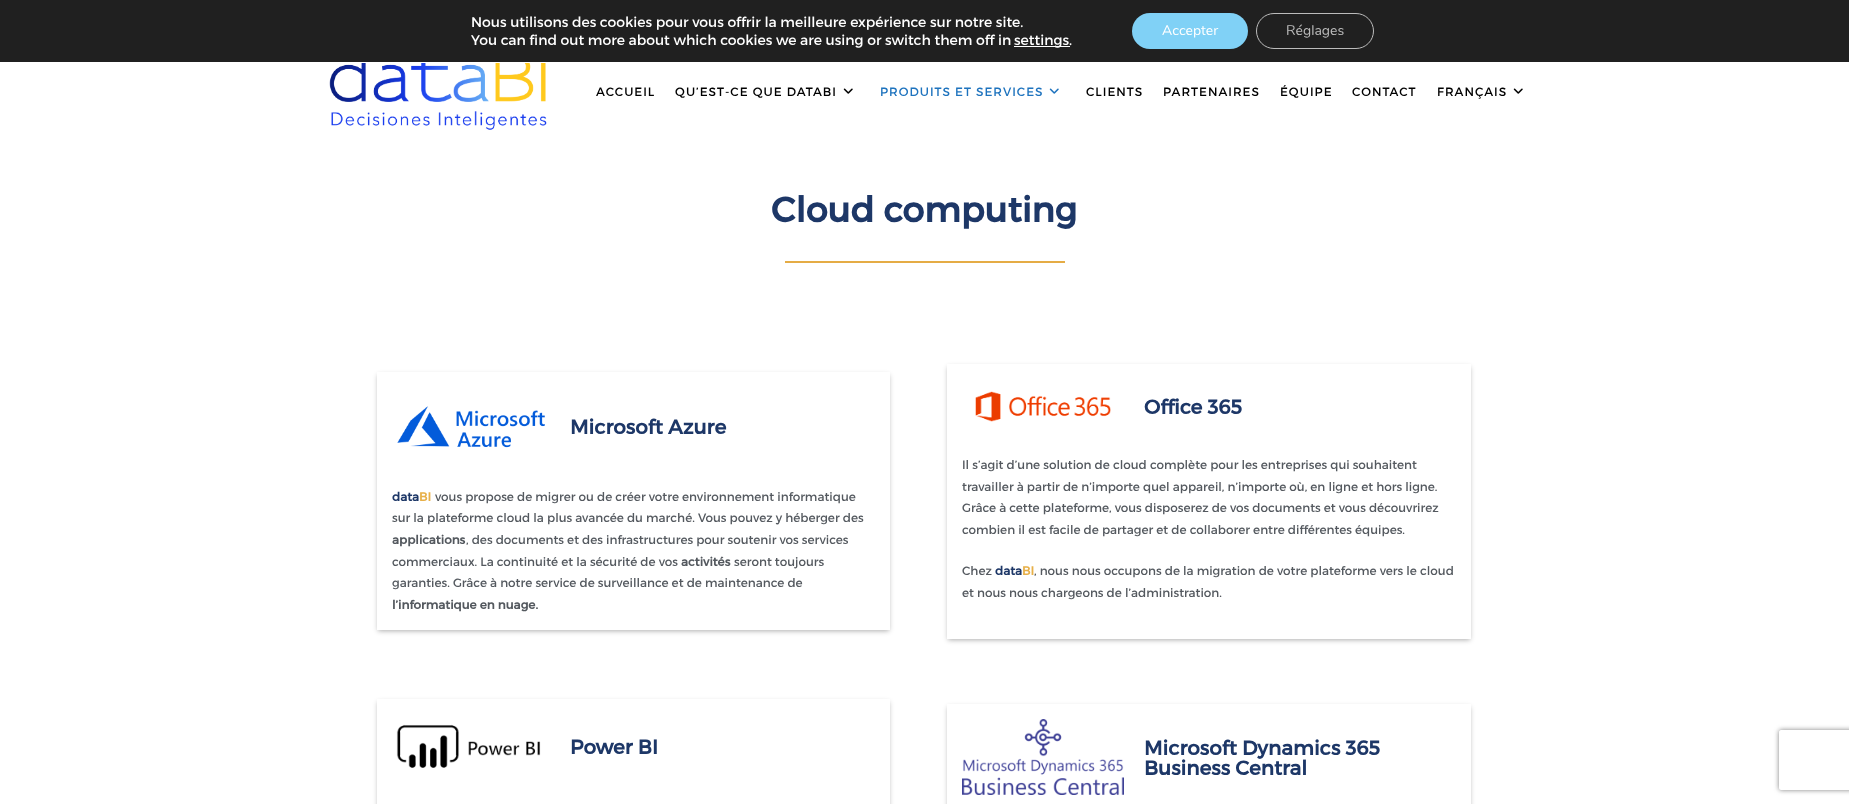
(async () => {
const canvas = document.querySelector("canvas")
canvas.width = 1849
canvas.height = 804
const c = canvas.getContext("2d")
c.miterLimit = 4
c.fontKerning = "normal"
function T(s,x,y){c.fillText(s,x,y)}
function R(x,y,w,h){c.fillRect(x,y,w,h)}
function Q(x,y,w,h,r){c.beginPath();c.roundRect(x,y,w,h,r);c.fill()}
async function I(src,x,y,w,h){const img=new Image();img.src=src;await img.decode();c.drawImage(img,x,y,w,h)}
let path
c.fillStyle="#fff"
R(0,0,1849,804)
c.fillStyle="#202020"
R(0,0,1849,62)
c.font="14px Montserrat"
c.fillStyle="#fff"
T("Nous utilisons des cookies pour vous offrir la meilleure expérience sur notre site.",471,27)
T("You can find out more about which cookies we are using or switch them off in",471,45)
R(1014,46,56,1)
T("settings.",1014,45)
c.fillStyle="#80d1f6"
Q(1132,13,116,36,18)
c.font="14px Nunito"
c.fillStyle="#fff"
T("Accepter",1162,35)
c.beginPath()
c.roundRect(1256.5,13.5,117,35,17.5)
c.strokeStyle="#bcbcbc"
c.stroke()
c.fillStyle="#bcbcbc"
T("Réglages",1286,35)
await I("1.png",329,63,218,67)
c.letterSpacing="1px"
c.font="12px Montserrat"
c.fillStyle="#000"
T("ACCUEIL",596,96)
T("QU’EST-CE QUE DATABI",675,96)
await I("2.png",843,88,10,6)
c.fillStyle="#1e73be"
T("PRODUITS ET SERVICES",880,96)
await I("3.png",1049,88,10,6)
c.fillStyle="#000"
T("CLIENTS",1086,96)
T("PARTENAIRES",1163,96)
T("ÉQUIPE",1280,96)
T("CONTACT",1352,96)
T("FRANÇAIS",1437,96)
await I("2.png",1513,88,10,6)
c.letterSpacing="0px"
c.font="bold 35px Montserrat"
c.fillStyle="#1d3767"
T("Cloud computing",771,222)
c.fillStyle="#e5ac45"
R(785,261,280,2)
c.save()
path = new Path2D("M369 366h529v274h-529zm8 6h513v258h-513z")
c.clip(path,"evenodd")
c.fillStyle="#00000052"
c.filter="blur(2.5px)"
c.beginPath()
c.rect(378,375,511,256)
c.fill()
c.filter="none"
c.restore()
await I("4.png",397,406,148,42)
c.font="bold 20px Montserrat"
c.fillStyle="#1d3767"
T("Microsoft Azure",570,434)
c.font="bold 12px Montserrat"
T("data",392,501)
c.fillStyle="#e7b049"
T("BI",419,501)
c.font="12px Montserrat"
c.fillStyle="#54595f"
T("vous propose de migrer ou de créer votre environnement informatique",435,501)
T("sur la plateforme cloud la plus avancée du marché. Vous pouvez y héberger des",392,522)
c.font="bold 12px Montserrat"
T("applications",392,544)
c.font="12px Montserrat"
T(", des documents et des infrastructures pour soutenir vos services",466,544)
T("commerciaux. La continuité et la sécurité de vos",392,566)
c.font="bold 12px Montserrat"
T("activités",681,566)
c.font="12px Montserrat"
T("seront toujours",734,566)
T("garanties. Grâce à notre service de surveillance et de maintenance de",392,587)
c.font="bold 12px Montserrat"
T("l’informatique en nuage.",392,609)
c.save()
path = new Path2D("M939 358h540v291h-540zm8 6h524v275h-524z")
c.clip(path,"evenodd")
c.fillStyle="#00000052"
c.filter="blur(2.5px)"
c.beginPath()
c.rect(948,367,522,273)
c.fill()
c.filter="none"
c.restore()
await I("5.png",975,391,136,31)
c.font="bold 20px Montserrat"
c.fillStyle="#1d3767"
T("Office 365",1144,414)
c.font="12px Montserrat"
c.fillStyle="#54595f"
T("Il s’agit d’une solution de cloud complète pour les entreprises qui souhaitent",962,469)
T("travailler à partir de n’importe quel appareil, n’importe où, en ligne et hors ligne.",962,491)
T("Grâce à cette plateforme, vous disposerez de vos documents et vous découvrirez",962,512)
T("combien il est facile de partager et de collaborer entre différentes équipes.",962,534)
T("Chez",962,575)
c.font="bold 12px Montserrat"
c.fillStyle="#1d3767"
T("data",995,575)
c.fillStyle="#e7b049"
T("BI",1022,575)
c.font="12px Montserrat"
c.fillStyle="#54595f"
T(", nous nous occupons de la migration de votre plateforme vers le cloud",1034,575)
T("et nous nous chargeons de l’administration.",962,597)
c.save()
path = new Path2D("M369 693h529v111h-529zm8 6h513v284h-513z")
c.clip(path,"evenodd")
c.fillStyle="#00000052"
c.filter="blur(2.5px)"
c.beginPath()
c.rect(378,702,511,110)
c.fill()
c.filter="none"
c.restore()
await I("6.png",396,724,145,44)
c.font="bold 20px Montserrat"
c.fillStyle="#1d3767"
T("Power BI",570,754)
c.save()
path = new Path2D("M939 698h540v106h-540zm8 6h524v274h-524z")
c.clip(path,"evenodd")
c.fillStyle="#00000052"
c.filter="blur(2.5px)"
c.beginPath()
c.rect(948,707,522,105)
c.fill()
c.filter="none"
c.restore()
await I("7.png",962,719,162,76)
T("Microsoft Dynamics 365",1144,755)
T("Business Central",1144,775)
c.save()
path = new Path2D("M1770 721h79v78h-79zm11 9h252c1 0 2 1 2 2v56c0 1-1 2-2 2h-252c-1 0-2-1-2-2v-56c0-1 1-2 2-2z")
c.clip(path,"evenodd")
c.fillStyle="#808080"
c.filter="blur(2.5px)"
c.beginPath()
c.roundRect(1779,730,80,60,2)
c.fill()
c.filter="none"
c.restore()
})()
